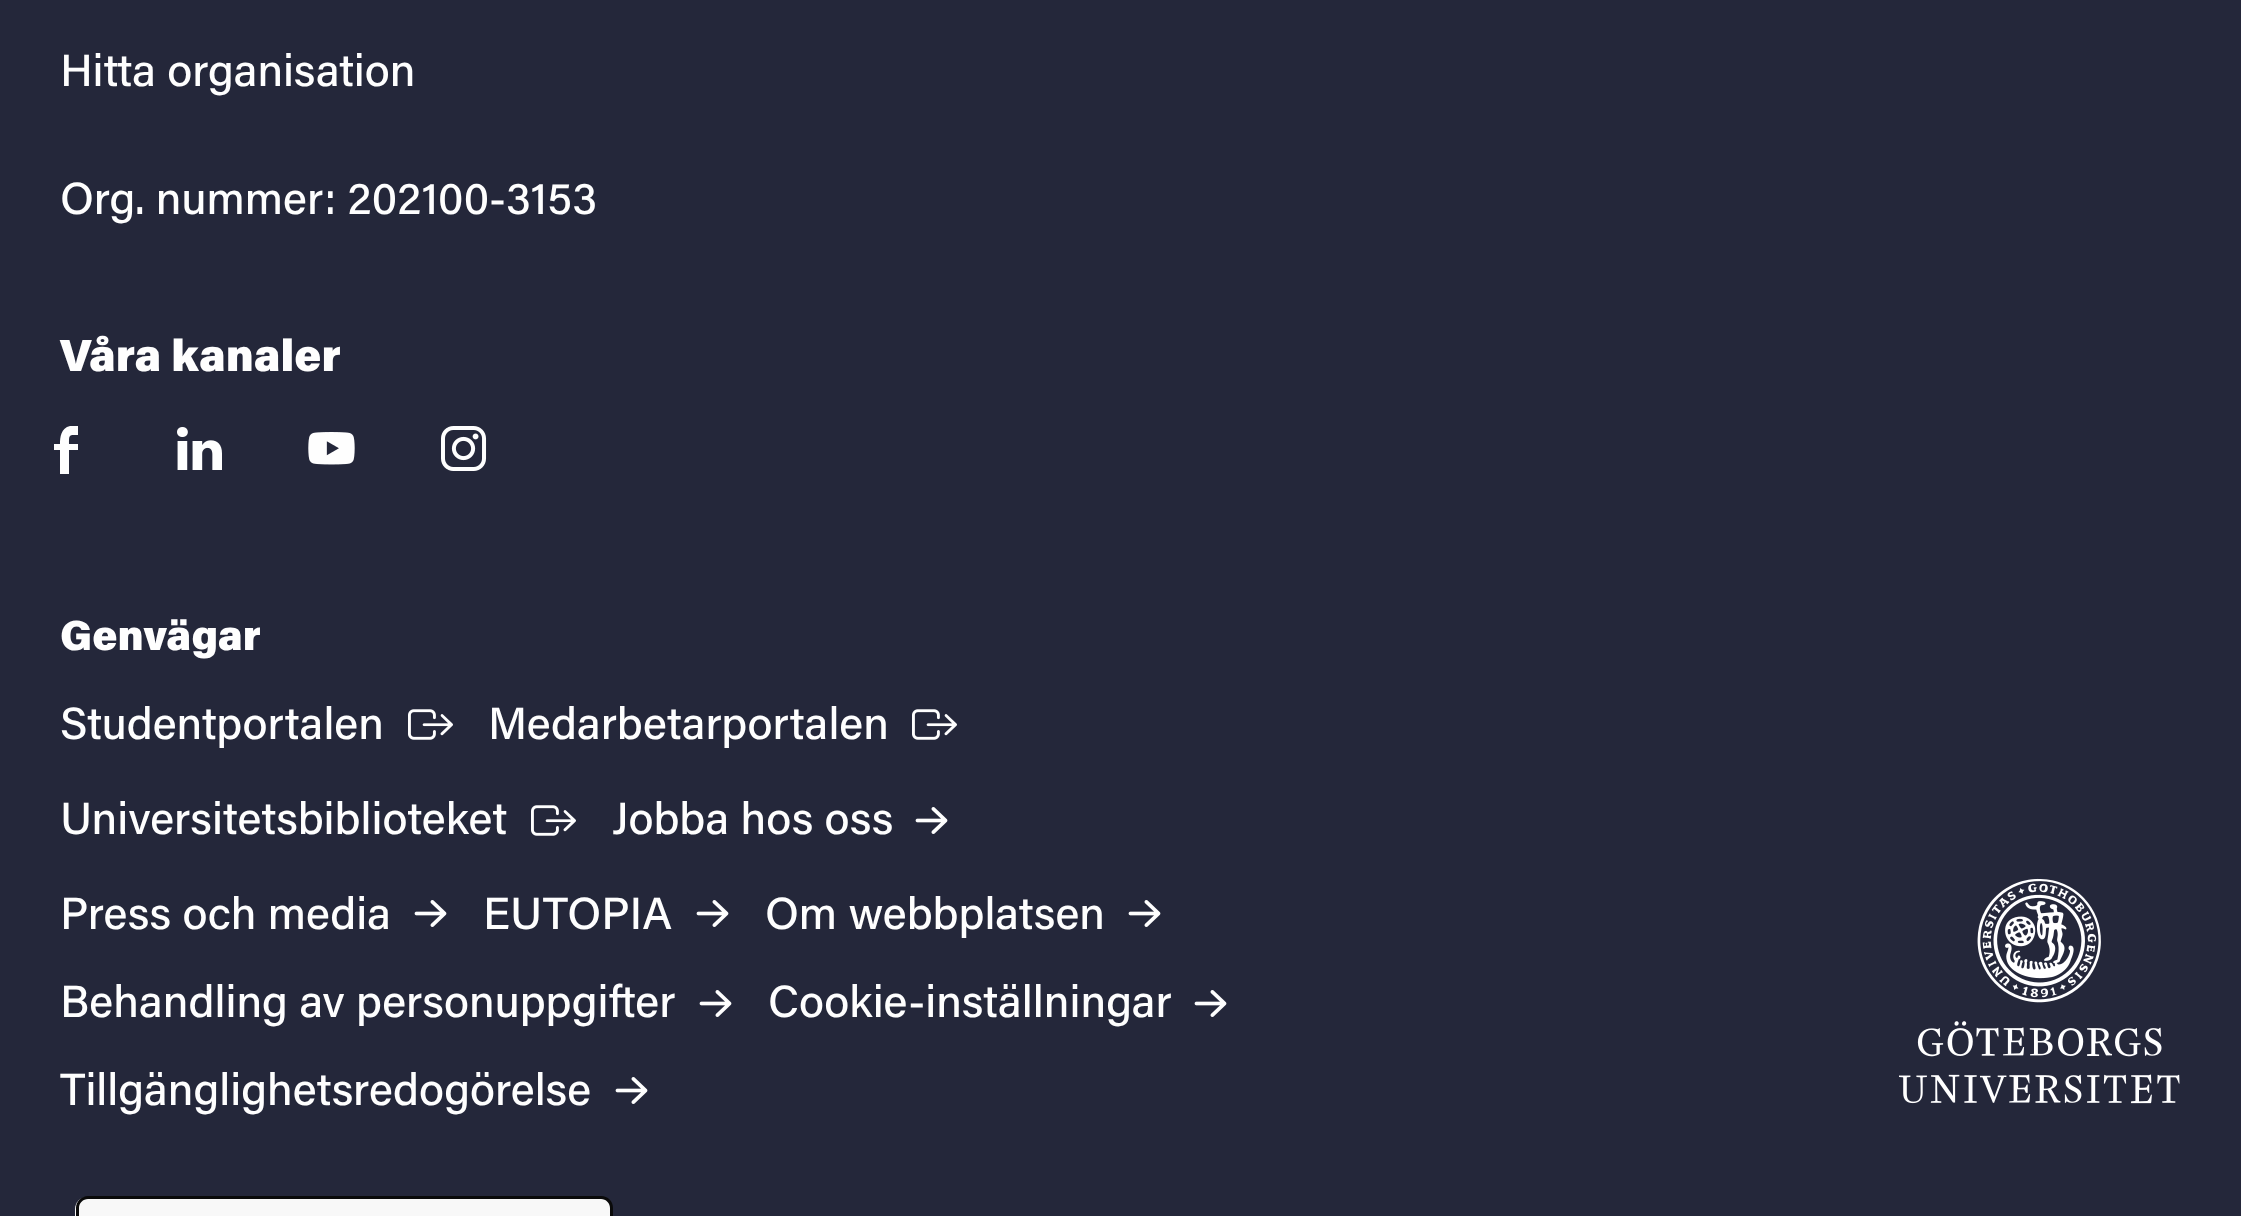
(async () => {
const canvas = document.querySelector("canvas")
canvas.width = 2241
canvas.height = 1216
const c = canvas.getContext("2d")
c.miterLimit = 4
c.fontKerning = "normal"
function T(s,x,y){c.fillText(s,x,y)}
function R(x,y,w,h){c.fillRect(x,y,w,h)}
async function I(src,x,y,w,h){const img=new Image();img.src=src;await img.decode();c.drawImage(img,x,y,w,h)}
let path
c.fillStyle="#24273a"
R(0,0,2241,1216)
c.font="500 45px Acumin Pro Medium"
c.fillStyle="#fefefe"
T("Hitta organisation",60,86)
T("Org. nummer: 202100-3153",60,214)
c.font="900 45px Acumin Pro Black"
T("Våra kanaler",60,371)
path = new Path2D("M69 474v-24h9v-6h-9c0-10 0-9 9-9v-9h-8c-9 2-10 11-10 18h-6v6h6v24")
c.fill(path,"evenodd")
await I("1.png",177,427,45,43)
await I("2.png",308,432,47,33)
await I("3.png",441,426,46,45)
c.font="900 42px Acumin Pro Black"
T("Genvägar",60,650)
c.font="500 45px Acumin Pro Medium"
T("Studentportalen",60,739)
await I("4.png",408,709,45,31)
T("Medarbetarportalen",488,739)
await I("4.png",912,709,45,31)
T("Universitetsbiblioteket",60,834)
await I("4.png",531,805,45,31)
T("Jobba hos oss",612,834)
await I("5.png",915,807,33,27)
T("Press och media",60,929)
await I("5.png",414,900,33,27)
T("EUTOPIA",483,929)
await I("5.png",696,900,33,27)
T("Om webbplatsen",765,929)
await I("5.png",1128,900,33,27)
T("Behandling av personuppgifter",60,1017)
await I("5.png",699,990,33,27)
T("Cookie-inställningar",768,1017)
await I("5.png",1194,990,33,27)
T("Tillgänglighetsredogörelse",60,1105)
await I("5.png",615,1077,33,27)
await I("6.png",1899,878,281,226)
c.fillStyle="#f8f8f8"
path = new Path2D("M87 1197h513c6.5 0 12 5.5 12 12v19h-537v-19c0-6.5 5.5-12 12-12z")
c.fill(path)
c.fillStyle="#0a0a0a"
path = new Path2D("M88 1196h513c7 0 12 5 12 12v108h-537v-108c0-7 6-12 12-12zm0 3h513c5 0 9 4 9 9v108h-531v-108c0-5 4-9 9-9z")
c.fill(path,"evenodd")
})()
